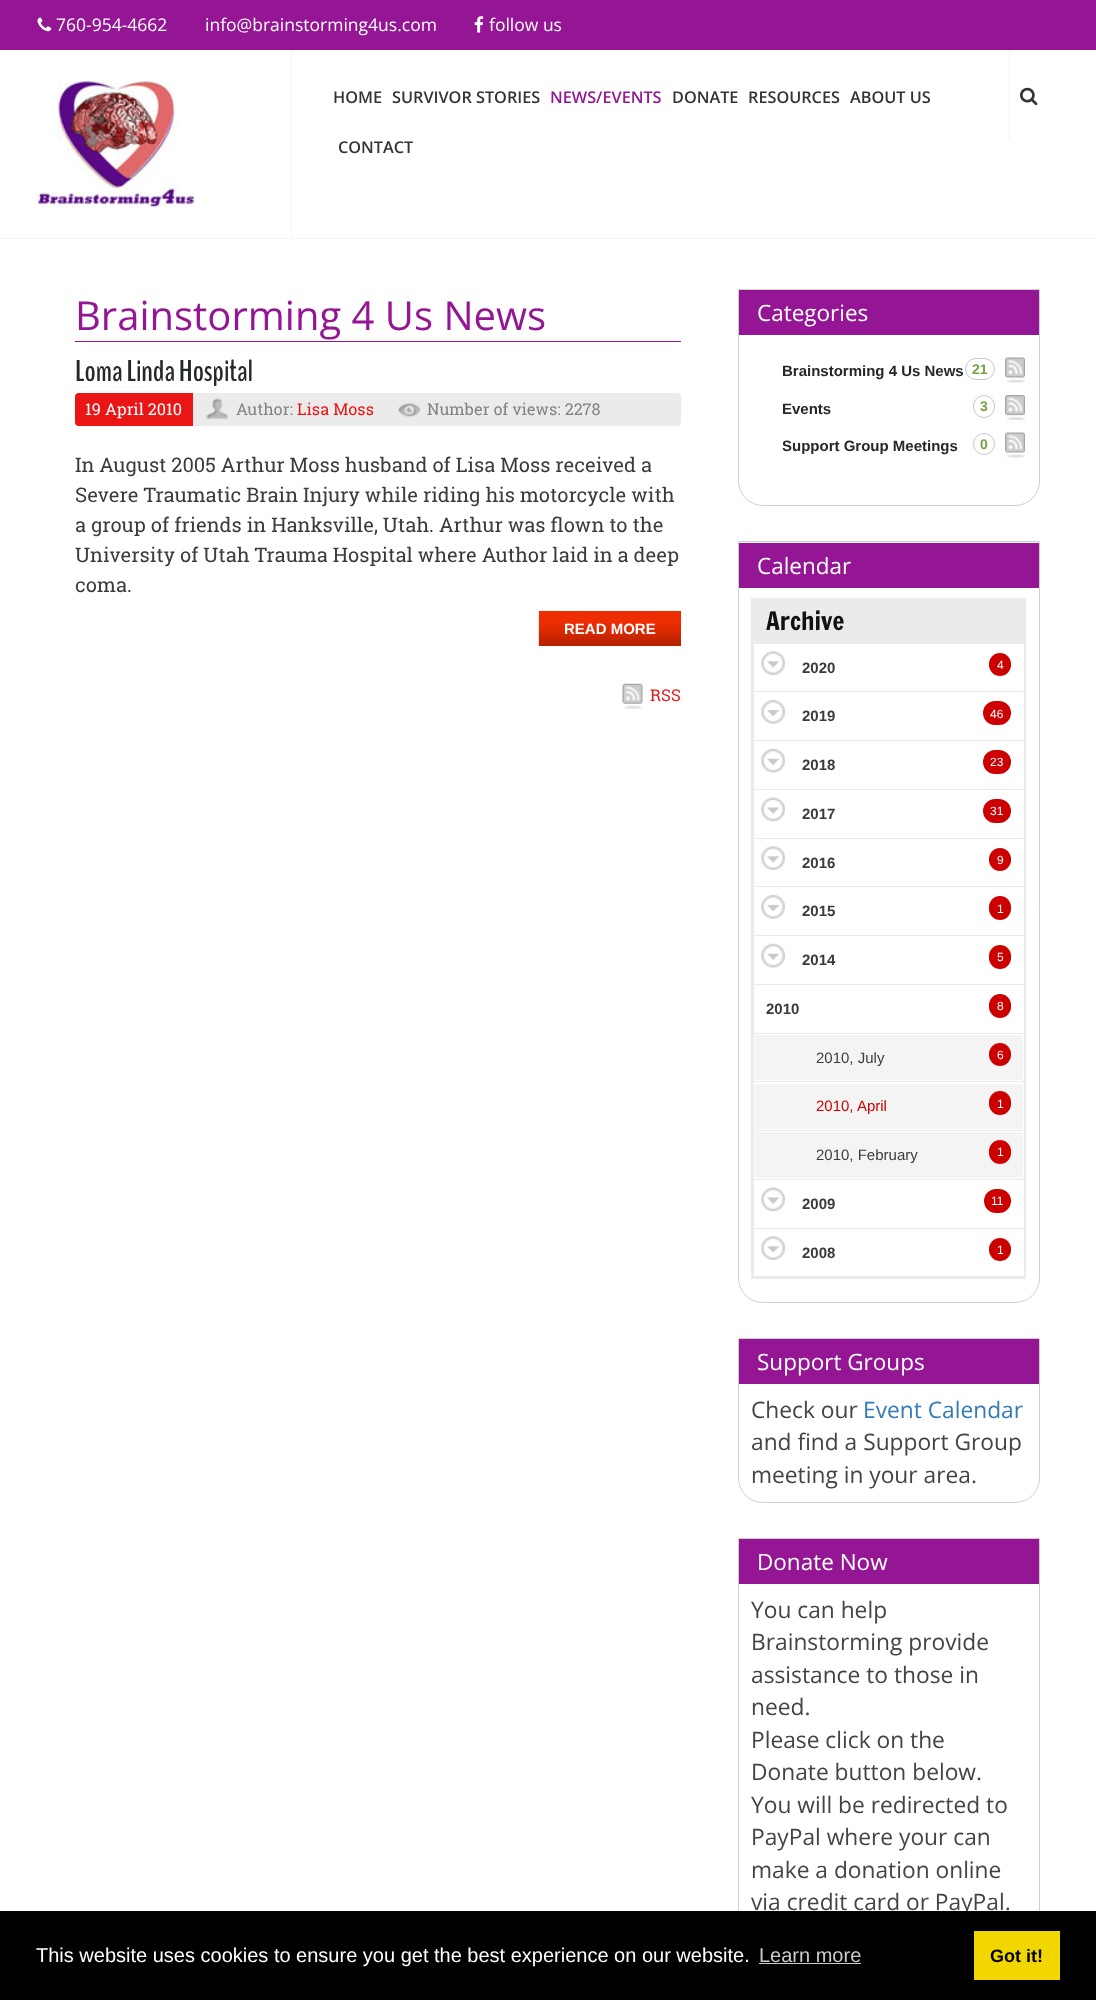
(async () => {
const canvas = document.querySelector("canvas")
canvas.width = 1096
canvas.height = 2000
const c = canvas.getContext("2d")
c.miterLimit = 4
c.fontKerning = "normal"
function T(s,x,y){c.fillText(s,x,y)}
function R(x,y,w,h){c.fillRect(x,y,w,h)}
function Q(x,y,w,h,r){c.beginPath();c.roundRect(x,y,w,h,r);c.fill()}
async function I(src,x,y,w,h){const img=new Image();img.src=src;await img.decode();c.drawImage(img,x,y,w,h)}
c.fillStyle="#fff"
R(0,0,1096,2000)
c.fillStyle="#941694"
R(0,0,1096,50)
await I("1.png",37,17,15,15)
c.font="17.5px Open Sans"
c.fillStyle="#fff"
T("760-954-4662",56,31)
T("info@brainstorming4us.com",205,31)
await I("2.png",474,16,10,17)
T("follow us",489,31)
c.fillStyle="#f5f5f5"
R(0,238,1096,1)
c.fillStyle="#f4f4f4"
R(291,50,1,188)
await I("3.png",37,81,158,126)
c.font="600 16.25px Open Sans"
c.fillStyle="#333"
T("HOME",333,103)
T("SURVIVOR STORIES",392,103)
c.fillStyle="#941694"
T("NEWS/EVENTS",550,103)
c.fillStyle="#333"
T("DONATE",672,103)
T("RESOURCES",748,103)
T("ABOUT US",850,103)
T("CONTACT",338,153)
c.fillStyle="#f4f4f4"
R(1009,50,1,91)
await I("4.png",1020,87,18,19)
c.fillStyle="#941694"
R(75,341,606,1)
c.font="40px Open Sans"
T("Brainstorming 4 Us News",75,330)
c.font="bold 30px BenchNine"
c.fillStyle="#25282a"
T("Loma Linda Hospital",75,381)
c.fillStyle="#ebebeb"
Q(75,393,606,33,4)
c.fillStyle="#ea1515"
c.beginPath()
c.roundRect(75,393,118,33,[4,0,0,4])
c.fill()
c.font="16.25px Roboto Slab"
c.fillStyle="#fff"
T("19 April 2010",85,415)
await I("5.png",206,398,22,21)
c.fillStyle="#838383"
T("Author:",236,415)
c.fillStyle="#ea1515"
T("Lisa Moss",297,415)
await I("6.png",398,403,22,14)
c.fillStyle="#838383"
T("Number of views: 2278",427,415)
c.font="20px Roboto Slab"
c.fillStyle="#3b3b3b"
T("In August 2005 Arthur Moss husband of Lisa Moss received a",75,472)
T("Severe Traumatic Brain Injury while riding his motorcycle with",75,502)
T("a group of friends in Hanksville, Utah. Arthur was flown to the",75,532)
T("University of Utah Trauma Hospital where Author laid in a deep",75,562)
T("coma.",75,592)
c.save()
c.beginPath()
c.rect(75,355,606,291)
c.clip()
c.fillStyle="#00000033"
c.filter="blur(1px)"
c.beginPath()
c.rect(539,614,142,35)
c.fill()
c.filter="none"
c.restore()
c.fillStyle="#ef2d02"
R(539,611,142,35)
await I("7.png",538,623,143,23)
c.font="bold 15px Liberation Sans"
c.fillStyle="#fff"
T("READ MORE",564,634)
await I("8.png",622,683,21,26)
c.font="16.25px Roboto Slab"
c.fillStyle="#ea1515"
T("RSS",650,701)
c.beginPath()
c.roundRect(738.5,289.5,301,216,[0,0,24.5,24.5])
c.strokeStyle="#cecfcf"
c.stroke()
c.fillStyle="#941694"
R(739,290,300,45)
c.font="22.5px Open Sans"
c.fillStyle="#fff"
T("Categories",757,321)
c.font="bold 15px Liberation Sans"
c.fillStyle="#25282a"
T("Brainstorming 4 Us News",782,376)
c.beginPath()
c.roundRect(965.5,358.5,29,21,10.5)
c.strokeStyle="#c6c9cb"
c.stroke()
c.font="bold 14px Liberation Sans"
c.fillStyle="#78a145"
T("21",972,374)
await I("9.png",1005,357,20,26)
c.font="bold 15px Liberation Sans"
c.fillStyle="#25282a"
T("Events",782,414)
c.beginPath()
c.roundRect(973.5,395.5,21,22,10.5)
c.stroke()
c.font="bold 14px Liberation Sans"
c.fillStyle="#78a145"
T("3",980,411)
await I("10.png",1005,395,20,25)
c.font="bold 15px Liberation Sans"
c.fillStyle="#25282a"
T("Support Group Meetings",782,451)
c.beginPath()
c.arc(984,444,10.5,0,7)
c.stroke()
c.font="bold 14px Liberation Sans"
c.fillStyle="#78a145"
T("0",980,449)
await I("9.png",1005,432,20,26)
c.beginPath()
c.roundRect(738.5,541.5,301,761,[0,0,24.5,24.5])
c.strokeStyle="#cecfcf"
c.stroke()
c.fillStyle="#941694"
R(739,543,300,45)
c.font="22.5px Open Sans"
c.fillStyle="#fff"
T("Calendar",757,574)
c.strokeStyle="#ebebeb"
c.lineWidth=3
c.strokeRect(752.5,599.5,272,678)
c.fillStyle="#ebebeb"
R(754,601,269,42)
c.font="25px Francois One"
c.fillStyle="#121212"
T("Archive",766,630)
c.fillStyle="#ebebeb"
R(754,643,270,1)
c.fillStyle="#fff"
R(1023,644,1,47)
await I("11.png",761,651,24,24)
c.font="bold 15px Liberation Sans"
c.fillStyle="#3b3b3b"
T("2020",802,673)
c.fillStyle="#c00"
Q(989,653,22,23,11)
c.font="12px Liberation Sans"
c.fillStyle="#fff"
T("4",997,669)
c.fillStyle="#ebebeb"
R(754,691,270,1)
c.fillStyle="#fff"
R(1023,693,1,47)
await I("12.png",761,700,24,24)
c.font="bold 15px Liberation Sans"
c.fillStyle="#3b3b3b"
T("2019",802,721)
c.fillStyle="#c00"
Q(983,701,28,24,12)
c.font="12px Liberation Sans"
c.fillStyle="#fff"
T("46",990,718)
c.fillStyle="#ebebeb"
R(754,740,270,1)
c.fillStyle="#fff"
R(1023,741,1,48)
await I("13.png",761,748,24,25)
c.font="bold 15px Liberation Sans"
c.fillStyle="#3b3b3b"
T("2018",802,770)
c.fillStyle="#c00"
Q(983,750,28,24,12)
c.font="12px Liberation Sans"
c.fillStyle="#fff"
T("23",990,766)
c.fillStyle="#ebebeb"
R(754,789,270,1)
c.fillStyle="#fff"
R(1023,790,1,48)
await I("14.png",761,797,24,25)
c.font="bold 15px Liberation Sans"
c.fillStyle="#3b3b3b"
T("2017",802,819)
c.fillStyle="#c00"
Q(983,799,28,24,12)
c.font="12px Liberation Sans"
c.fillStyle="#fff"
T("31",990,815)
c.fillStyle="#ebebeb"
R(754,838,270,1)
c.fillStyle="#fff"
R(1023,839,1,47)
await I("11.png",761,846,24,24)
c.font="bold 15px Liberation Sans"
c.fillStyle="#3b3b3b"
T("2016",802,868)
c.fillStyle="#c00"
Q(989,848,22,23,11)
c.font="12px Liberation Sans"
c.fillStyle="#fff"
T("9",997,864)
c.fillStyle="#ebebeb"
R(754,886,270,1)
c.fillStyle="#fff"
R(1023,888,1,47)
await I("12.png",761,895,24,24)
c.font="bold 15px Liberation Sans"
c.fillStyle="#3b3b3b"
T("2015",802,916)
c.fillStyle="#c00"
Q(989,896,22,24,11)
c.font="12px Liberation Sans"
c.fillStyle="#fff"
T("1",997,913)
c.fillStyle="#ebebeb"
R(754,935,270,1)
c.fillStyle="#fff"
R(1023,936,1,48)
await I("13.png",761,943,24,25)
c.font="bold 15px Liberation Sans"
c.fillStyle="#3b3b3b"
T("2014",802,965)
c.fillStyle="#c00"
Q(989,945,22,24,11)
c.font="12px Liberation Sans"
c.fillStyle="#fff"
T("5",997,961)
c.fillStyle="#ebebeb"
R(754,984,270,1)
c.fillStyle="#fff"
R(1023,985,1,48)
c.font="bold 15px Liberation Sans"
c.fillStyle="#3b3b3b"
T("2010",766,1014)
c.fillStyle="#c00"
Q(989,994,22,24,11)
c.font="12px Liberation Sans"
c.fillStyle="#fff"
T("8",997,1010)
c.fillStyle="#ebebeb"
R(754,1033,270,1)
c.fillStyle="#f5f4f4"
c.beginPath()
c.rect(754.5,1034.5,269,46)
c.fill()
c.strokeStyle="#fff"
c.lineWidth=1
c.stroke()
c.font="15px Liberation Sans"
c.fillStyle="#3b3b3b"
T("2010, July",816,1063)
c.fillStyle="#c00"
Q(989,1043,22,23,11)
c.font="12px Liberation Sans"
c.fillStyle="#fff"
T("6",997,1059)
c.fillStyle="#ebebeb"
R(754,1081,270,1)
c.fillStyle="#f5f4f4"
c.beginPath()
c.rect(754.5,1083.5,269,46)
c.fill()
c.stroke()
c.font="15px Liberation Sans"
c.fillStyle="#c00"
T("2010, April",816,1111)
Q(989,1091,22,24,11)
c.font="12px Liberation Sans"
c.fillStyle="#fff"
T("1",997,1108)
c.fillStyle="#ebebeb"
R(754,1130,270,1)
c.fillStyle="#f5f4f4"
c.beginPath()
c.rect(754.5,1131.5,269,47)
c.fill()
c.stroke()
c.font="15px Liberation Sans"
c.fillStyle="#3b3b3b"
T("2010, February",816,1160)
c.fillStyle="#c00"
Q(989,1140,22,24,11)
c.font="12px Liberation Sans"
c.fillStyle="#fff"
T("1",997,1156)
c.fillStyle="#ebebeb"
R(754,1179,270,1)
c.fillStyle="#fff"
R(1023,1180,1,48)
await I("14.png",761,1187,24,25)
c.font="bold 15px Liberation Sans"
c.fillStyle="#3b3b3b"
T("2009",802,1209)
c.fillStyle="#c00"
Q(984,1189,27,24,12)
c.font="12px Liberation Sans"
c.fillStyle="#fff"
T("11",991,1205)
c.fillStyle="#ebebeb"
R(754,1228,270,1)
c.fillStyle="#fff"
R(1023,1229,1,47)
await I("11.png",761,1236,24,24)
c.font="bold 15px Liberation Sans"
c.fillStyle="#3b3b3b"
T("2008",802,1258)
c.fillStyle="#c00"
Q(989,1238,22,23,11)
c.font="12px Liberation Sans"
c.fillStyle="#fff"
T("1",997,1254)
c.beginPath()
c.roundRect(738.5,1338.5,301,164,[0,0,24.5,24.5])
c.strokeStyle="#cecfcf"
c.stroke()
c.fillStyle="#941694"
R(739,1339,300,45)
c.font="22.5px Open Sans"
c.fillStyle="#fff"
T("Support Groups",757,1370)
c.font="22.75px Open Sans"
c.fillStyle="#444"
T("Check our",751,1418)
c.fillStyle="#337ab7"
T("Event Calendar",863,1418)
c.fillStyle="#444"
T("and find a Support Group",751,1450)
T("meeting in your area.",751,1483)
c.strokeRect(738.5,1538.5,301,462)
c.fillStyle="#941694"
R(739,1539,300,45)
c.font="22.5px Open Sans"
c.fillStyle="#fff"
T("Donate Now",757,1570)
c.font="22.75px Open Sans"
c.fillStyle="#444"
T("You can help",751,1618)
T("Brainstorming provide",751,1650)
T("assistance to those in",751,1683)
T("need.",751,1715)
T("Please click on the",751,1748)
T("Donate button below.",751,1780)
T("You will be redirected to",751,1813)
T("PayPal where your can",751,1845)
T("make a donation online",751,1878)
T("via credit card or PayPal.",751,1910)
c.fillStyle="#000"
R(0,1911,1096,89)
c.font="20px Liberation Sans"
c.fillStyle="#fff"
T("This website uses cookies to ensure you get the best experience on our website.",36,1962)
c.fillStyle="#ccc"
T("Learn more",759,1962)
R(759,1963,102,1)
c.fillStyle="#f1d600"
R(974,1931,86,49)
c.font="bold 18px Liberation Sans"
c.fillStyle="#000"
T("Got it!",990,1962)
})()
